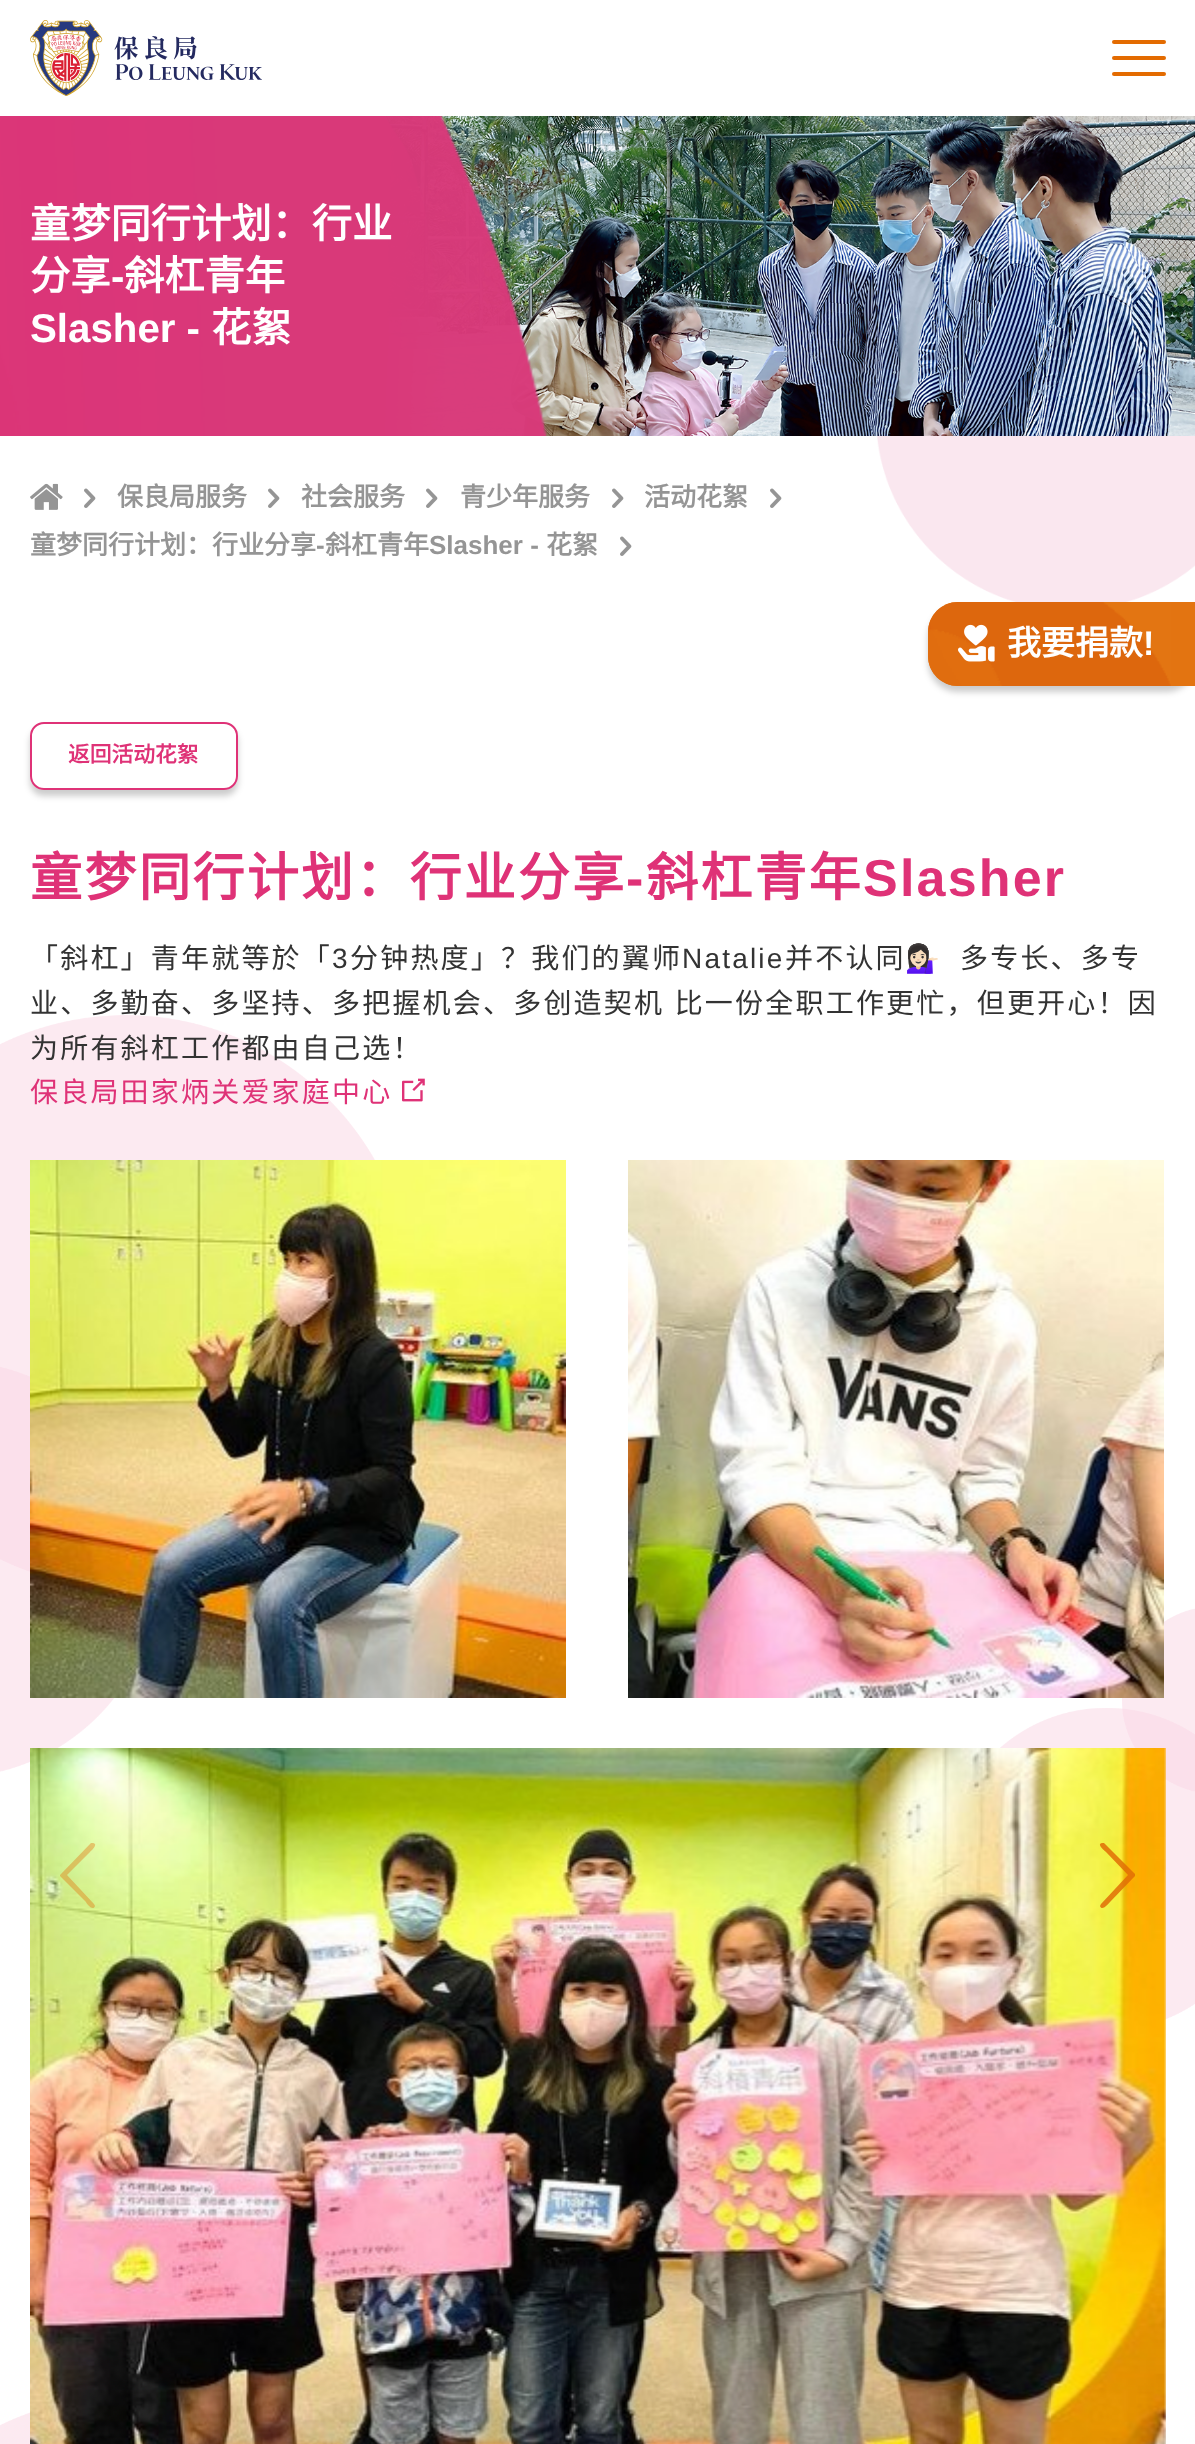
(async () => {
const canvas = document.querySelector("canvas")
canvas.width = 1195
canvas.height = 2444
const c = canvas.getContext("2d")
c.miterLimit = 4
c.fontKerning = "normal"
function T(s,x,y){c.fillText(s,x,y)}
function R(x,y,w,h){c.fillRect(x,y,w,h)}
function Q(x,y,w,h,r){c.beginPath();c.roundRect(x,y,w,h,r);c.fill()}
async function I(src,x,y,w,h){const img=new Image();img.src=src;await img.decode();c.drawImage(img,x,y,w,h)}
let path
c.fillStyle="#fff"
R(0,0,1195,2444)
await I("1.png",30,20,232,76)
c.fillStyle="#e36b00"
Q(1112,40,54,4,2)
Q(1112,56,54,4,2)
Q(1112,72,54,4,2)
await I("2.png",0,116,1195,320)
await I("3.png",0,116,547,320)
c.font="bold 40.25px Noto Sans CJK SC"
c.fillStyle="#fff"
T("童梦同行计划：行业",30,238)
T("分享",30,290)
c.font="bold 40.25px Liberation Sans"
T("-",111,290)
c.font="bold 40.25px Noto Sans CJK SC"
T("斜杠青年",124,290)
c.font="bold 40.25px Liberation Sans"
T("Slasher -",30,342)
c.font="bold 40.25px Noto Sans CJK SC"
T("花絮",211,342)
await I("4.png",877,436,318,166)
await I("5.png",30,483,33,27)
await I("6.png",84,488,12,20)
c.font="bold 26px Noto Sans CJK SC"
c.fillStyle="#959595"
T("保良局服务",117,506)
await I("6.png",268,488,12,20)
T("社会服务",301,506)
await I("6.png",426,488,12,20)
T("青少年服务",460,506)
await I("6.png",612,488,12,20)
T("活动花絮",644,506)
await I("6.png",770,488,12,20)
T("童梦同行计划：行业分享",30,554)
c.font="bold 26px Liberation Sans"
T("-",316,554)
c.font="bold 26px Noto Sans CJK SC"
T("斜杠青年",325,554)
c.font="bold 26px Liberation Sans"
T("Slasher -",429,554)
c.font="bold 26px Noto Sans CJK SC"
T("花絮",546,554)
await I("6.png",620,536,12,20)
await I("7.png",0,1015,1195,1429)
c.fillStyle="#00000033"
c.filter="blur(3px)"
c.beginPath()
c.roundRect(928,608,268,84,30)
c.fill()
c.filter="none"
c.fillStyle="#e37411"
path = new Path2D("M958 602h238v84h-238c-16.5 0-30-13.5-30-30v-24c0-16.5 13.5-30 30-30z")
c.fill(path)
await I("8.png",928,602,243,84)
await I("9.png",958,624,37,38)
c.font="bold 34px Noto Sans CJK SC"
c.fillStyle="#fff"
T("我要捐款",1007,655)
c.font="bold 34px Liberation Sans"
T("!",1143,655)
c.save()
path = new Path2D("M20 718h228v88h-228zm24 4h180c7.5 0 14 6.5 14 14v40c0 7.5-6.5 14-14 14h-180c-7.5 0-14-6.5-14-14v-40c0-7.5 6.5-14 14-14z")
c.clip(path,"evenodd")
c.fillStyle="#00000033"
c.filter="blur(3px)"
c.beginPath()
c.roundRect(30,728,208,68,14)
c.fill()
c.filter="none"
c.restore()
c.beginPath()
c.roundRect(31,723,206,66,13)
c.strokeStyle="#df3277"
c.lineWidth=2
c.stroke()
c.font="bold 21.75px Noto Sans CJK SC"
c.fillStyle="#df3277"
T("返回活动花絮",68,762)
c.letterSpacing="2.2px"
c.font="bold 52px Noto Sans CJK SC"
T("童梦同行计划：行业分享",30,896)
c.font="bold 52px Liberation Sans"
T("-",626,896)
c.font="bold 52px Noto Sans CJK SC"
T("斜杠青年",646,896)
c.font="bold 52px Liberation Sans"
T("Slasher",863,896)
c.font="28px Noto Sans CJK SC"
c.fillStyle="#333"
T("「斜杠」青年就等於「",30,968)
c.font="28px Liberation Sans"
T("3",332,968)
c.font="28px Noto Sans CJK SC"
T("分钟热度」？我们的翼师",350,968)
c.font="28px Liberation Sans"
T("Natalie",682,968)
c.font="28px Noto Sans CJK SC"
T("并不认同",785,968)
c.font="28px Noto Color Emoji"
T("💁🏻‍♀️",905,968)
c.font="28px Noto Sans CJK SC"
T("多专长、多专",960,968)
c.wordSpacing="2px"
T("业、多勤奋、多坚持、多把握机会、多创造契机 比一份全职工作更忙，但更开心！因",30,1013)
c.wordSpacing="0px"
T("为所有斜杠工作都由自己选！",30,1058)
c.fillStyle="#df3277"
T("保良局田家炳关爱家庭中心",30,1102)
await I("10.png",402,1078,23,24)
await I("11.png",30,1160,536,538)
await I("12.png",628,1160,536,538)
await I("13.png",30,1748,1136,696)
c.fillStyle="#e16d0661"
path = new Path2D("M94 1904l1 2c-2 6-9-3-9-4l-26-26v-1l1-1l30-31h2c6 1-2 8-3 9l-23 23z")
c.fill(path)
c.fillStyle="#e16d06d9"
path = new Path2D("M1101 1904l27-29l-22-23c-1-1-10-8-4-9h2l31 31v1v1l-25 26c-1 1-8 10-10 4z")
c.fill(path)
})()
